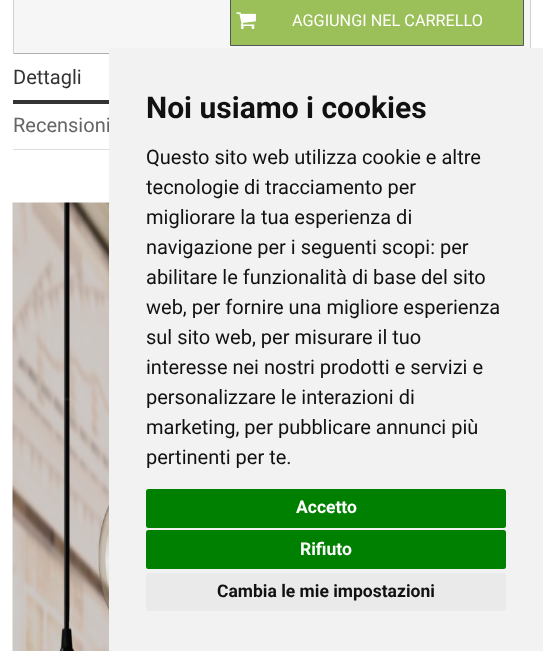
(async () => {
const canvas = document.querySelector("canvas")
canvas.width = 543
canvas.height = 651
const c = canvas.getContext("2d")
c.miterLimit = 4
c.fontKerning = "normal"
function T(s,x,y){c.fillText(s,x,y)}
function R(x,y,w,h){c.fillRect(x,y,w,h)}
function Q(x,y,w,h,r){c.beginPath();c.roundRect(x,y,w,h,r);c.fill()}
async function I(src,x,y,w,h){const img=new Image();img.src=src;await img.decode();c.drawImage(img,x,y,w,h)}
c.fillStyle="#fff"
R(0,0,543,651)
c.fillStyle="#f6f6f6"
R(14,0,516,53)
c.fillStyle="#d2d0d0"
R(530,0,1,54)
c.fillStyle="#b0afaf"
R(13,53,96,1)
c.fillStyle="#d2d0d0"
R(13,0,1,54)
c.fillStyle="#9bc059"
c.beginPath()
c.rect(230.5,-.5,293,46)
c.fill()
c.strokeStyle="#565656"
c.stroke()
await I("1.png",236,12,20,17)
c.font="16.25px Roboto"
c.fillStyle="#fff"
T("AGGIUNGI NEL CARRELLO",292,26)
c.fillStyle="#ddd"
R(13,149,96,1)
c.font="20px Roboto"
c.fillStyle="#333"
T("Dettagli",13,84)
R(13,100,96,4)
c.fillStyle="#666"
T("Recensioni",13,132)
await I("2.png",12,202,97,449)
c.fillStyle="#f2f2f2"
R(109,48,434,603)
c.font="bold 30px Roboto"
c.fillStyle="#111"
T("Noi usiamo i cookies",146,118)
c.font="20px Roboto"
T("Questo sito web utilizza cookie e altre",146,164)
T("tecnologie di tracciamento per",146,194)
T("migliorare la tua esperienza di",146,224)
T("navigazione per i seguenti scopi: per",146,254)
T("abilitare le funzionalità di base del sito",146,284)
T("web, per fornire una migliore esperienza",146,314)
T("sul sito web, per misurare il tuo",146,344)
T("interesse nei nostri prodotti e servizi e",146,374)
T("personalizzare le interazioni di",146,404)
T("marketing, per pubblicare annunci più",146,434)
T("pertinenti per te.",146,464)
c.fillStyle="#008000"
Q(146,489,360,39,2.5)
c.font="bold 17.5px Roboto"
c.fillStyle="#fff"
T("Accetto",296,513)
c.fillStyle="#008000"
Q(146,530,360,39,2.5)
c.fillStyle="#fff"
T("Rifiuto",300,555)
c.fillStyle="#eaeaea"
Q(146,573,360,38,2.5)
c.fillStyle="#111"
T("Cambia le mie impostazioni",217,597)
})()
